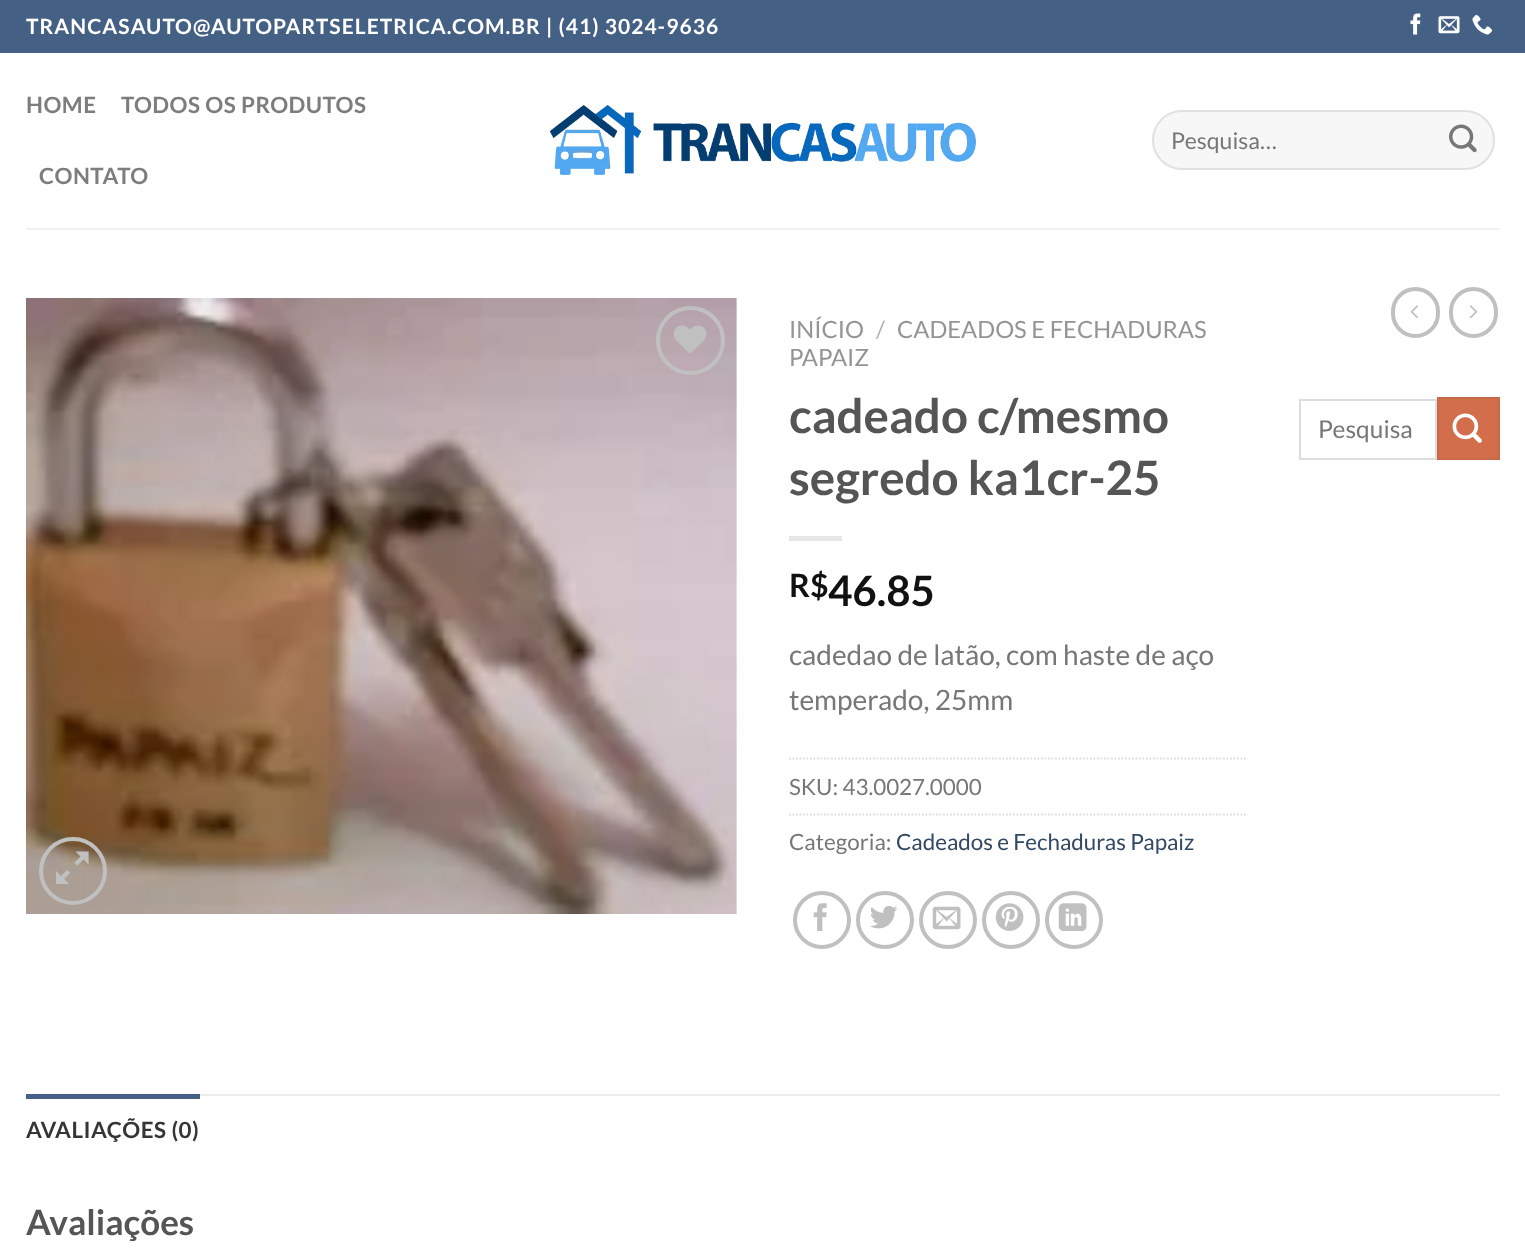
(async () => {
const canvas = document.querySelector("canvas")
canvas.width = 1525
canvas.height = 1255
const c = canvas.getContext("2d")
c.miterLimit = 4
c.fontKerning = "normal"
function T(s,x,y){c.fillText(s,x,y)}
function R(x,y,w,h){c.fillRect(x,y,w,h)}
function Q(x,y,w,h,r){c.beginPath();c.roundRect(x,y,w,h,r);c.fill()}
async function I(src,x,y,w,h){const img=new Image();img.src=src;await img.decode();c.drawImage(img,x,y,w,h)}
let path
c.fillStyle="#fff"
R(0,0,1525,1255)
c.fillStyle="#446084"
R(0,0,1525,53)
c.letterSpacing="1.05px"
c.font="bold 21px Lato"
c.fillStyle="#fff"
T("TRANCASAUTO@AUTOPARTSELETRICA.COM.BR | (41) 3024-9636",26,34)
await I("1.png",1410,13,11,22)
await I("2.png",1438,16,22,18)
await I("3.png",1472,14,21,21)
c.letterSpacing="0.5px"
c.font="bold 22.4px Lato"
c.fillStyle="#7d7d7d"
T("HOME",26,113)
T("TODOS OS PRODUTOS",121,113)
T("CONTATO",39,184)
await I("4.png",549,105,427,70)
c.fillStyle="#f7f7f7"
Q(1152,110,343,60,30)
c.beginPath()
c.roundRect(1153,111,341,58,29)
c.strokeStyle="#00000017"
c.lineWidth=2
c.stroke()
c.letterSpacing="0px"
c.font="23px Lato"
c.fillStyle="#777"
T("Pesquisa…",1171,149)
await I("5.png",1449,124,28,29)
c.fillStyle="#f1f1f1"
R(26,228,1474,2)
await I("6.png",26,298,711,616)
c.beginPath()
c.arc(690.5,340.5,32.5,0,7)
c.strokeStyle="#c0c0c0"
c.lineWidth=4
c.stroke()
await I("7.png",673,325,34,29)
c.beginPath()
c.arc(73,871,32,0,7)
c.stroke()
await I("8.png",56,851,33,33)
c.font="23.75px Lato"
c.fillStyle="#949494"
T("INÍCIO",789,338)
c.fillStyle="#b2b2b2"
T("/",876,338)
c.fillStyle="#949494"
T("CADEADOS E FECHADURAS",897,338)
T("PAPAIZ",789,366)
c.font="bold 47.5px Lato"
c.fillStyle="#555"
T("cadeado c/mesmo",789,433)
T("segredo ka1cr-25",789,495)
c.fillStyle="#e6e6e6"
R(789,536,53,5)
c.font="bold 32px Lato"
c.fillStyle="#111"
T("R$",789,597)
c.font="bold 42px Lato"
T("46.85",828,606)
c.font="28px Lato"
c.fillStyle="#777"
T("cadedao de latão, com haste de aço",789,665)
T("temperado, 25mm",789,710)
path = new Path2D("M789 758.5h457")
c.strokeStyle="#ddd"
c.lineWidth=1.8
c.setLineDash([1.75,1.75])
c.stroke(path)
c.font="22.4px Lato"
T("SKU: 43.0027.0000",789,795)
path = new Path2D("M789 814.5h457")
c.stroke(path)
T("Categoria:",789,850)
c.fillStyle="#334862"
T("Cadeados e Fechaduras Papaiz",896,850)
c.beginPath()
c.arc(822,920,27,0,7)
c.strokeStyle="#c0c0c0"
c.lineWidth=4
c.setLineDash([])
c.stroke()
await I("9.png",813,903,14,28)
c.beginPath()
c.arc(885,920,27,0,7)
c.stroke()
await I("10.png",870,905,28,24)
c.beginPath()
c.arc(948,920,27,0,7)
c.stroke()
await I("11.png",932,906,29,24)
c.beginPath()
c.arc(1011,920,27,0,7)
c.stroke()
await I("12.png",995,903,29,28)
c.beginPath()
c.arc(1074,920,27,0,7)
c.stroke()
await I("13.png",1058,903,29,28)
c.beginPath()
c.roundRect(1393,289,45,47,22.5)
c.stroke()
await I("14.png",1410,305,8,14)
c.beginPath()
c.roundRect(1451,289,45,47,22.5)
c.stroke()
await I("15.png",1469,305,9,14)
c.strokeStyle="#ddd"
c.lineWidth=2
c.strokeRect(1300,400,136,59)
c.font="24.5px Lato"
c.fillStyle="#777"
T("Pesquisa",1318,438)
c.fillStyle="#d26e4b"
c.beginPath()
c.rect(1438,398,61,61)
c.fill()
c.strokeStyle="#c86947"
c.stroke()
await I("16.png",1452,413,30,30)
c.fillStyle="#ececec"
R(200,1094,1300,2)
c.fillStyle="#446084"
R(26,1094,174,5)
c.letterSpacing="0.5px"
c.font="bold 22.4px Lato"
c.fillStyle="#353535"
T("AVALIAÇÕES (0)",26,1138)
c.letterSpacing="0px"
c.font="bold 35px Lato"
c.fillStyle="#555"
T("Avaliações",26,1235)
})()
